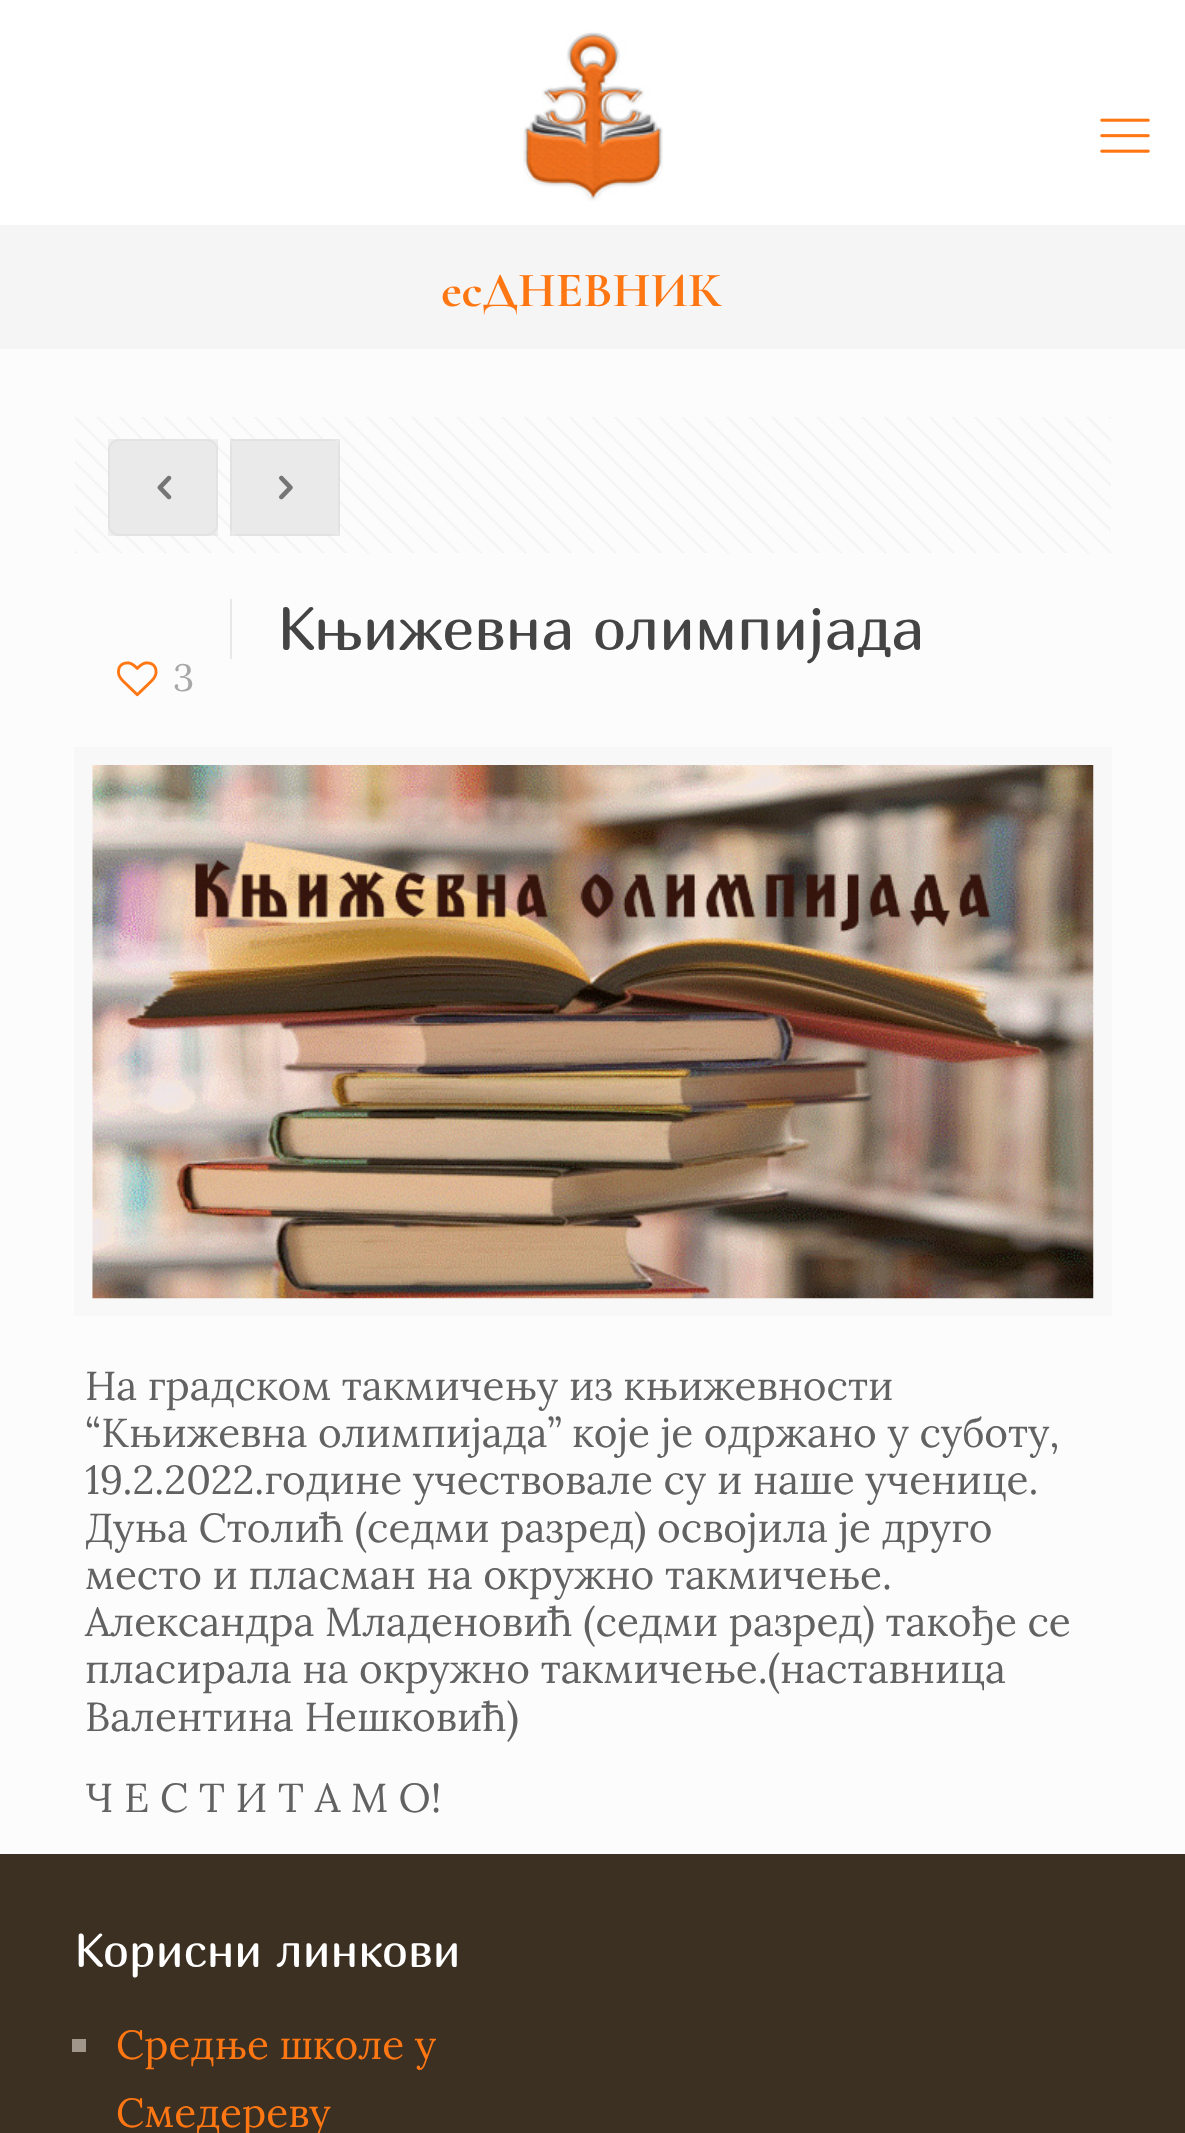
(async () => {
const canvas = document.querySelector("canvas")
canvas.width = 1185
canvas.height = 2133
const c = canvas.getContext("2d")
c.miterLimit = 4
c.fontKerning = "normal"
function T(s,x,y){c.fillText(s,x,y)}
function R(x,y,w,h){c.fillRect(x,y,w,h)}
function Q(x,y,w,h,r){c.beginPath();c.roundRect(x,y,w,h,r);c.fill()}
async function I(src,x,y,w,h){const img=new Image();img.src=src;await img.decode();c.drawImage(img,x,y,w,h)}
c.fillStyle="#fcfcfc"
R(0,0,1185,2133)
c.fillStyle="#fff"
R(0,0,1185,225)
await I("1.png",523,31,140,171)
await I("2.png",1100,118,50,35)
c.fillStyle="#f5f5f5"
R(0,225,1185,124)
c.font="bold 49.5px Cormorant Garamond"
c.fillStyle="#ff7713"
T("есДНЕВНИК",441,306)
await I("3.png",75,417,1036,136)
c.fillStyle="#f7f7f7"
c.beginPath()
c.roundRect(109,440,108,95,10)
c.fill()
c.strokeStyle="#f0f0f0"
c.lineWidth=2
c.stroke()
c.fillStyle="#0000000d"
R(108,439,110,97)
await I("4.png",157,475,15,25)
c.fillStyle="#f7f7f7"
Q(230,439,110,97,11)
c.strokeStyle="#00000008"
c.strokeRect(231,440,108,95)
c.fillStyle="#0000000d"
R(230,439,110,97)
await I("5.png",279,475,14,25)
c.fillStyle="#e8e8e8"
R(230,599,2,60)
c.font="60.75px Marmelad"
c.fillStyle="#444"
T("Књижевна олимпијада",277,650)
await I("6.png",117,661,41,36)
c.font="38px Lora"
c.fillStyle="#a8a8a8"
T("3",173,691)
c.strokeStyle="#f8f8f8"
c.lineWidth=18
c.strokeRect(83,756,1020,551)
await I("7.png",92,765,1002,534)
c.font="40.5px Lora"
c.fillStyle="#626262"
T("На градском такмичењу из књижевности",85,1400)
T("“Књижевна олимпијада” које је одржано у суботу,",85,1447)
T("19.2.2022.године учествовале су и наше ученице.",85,1494)
T("Дуња Столић (седми разред) освојила је друго",85,1542)
T("место и пласман на окружно такмичење.",85,1589)
T("Александра Младеновић (седми разред) такође се",85,1636)
T("пласирала на окружно такмичење.(наставница",85,1683)
T("Валентина Нешковић)",85,1731)
T("Ч Е С Т И Т А М О!",85,1812)
c.fillStyle="#3c3023"
R(0,1854,1185,279)
c.font="47.25px Marmelad"
c.fillStyle="#fff"
T("Корисни линкови",74,1967)
c.fillStyle="#a0968a"
R(72,2039,14,13)
c.font="40.5px Lora"
c.fillStyle="#ff7713"
T("Средње школе у",116,2059)
T("Смедереву",116,2127)
})()
